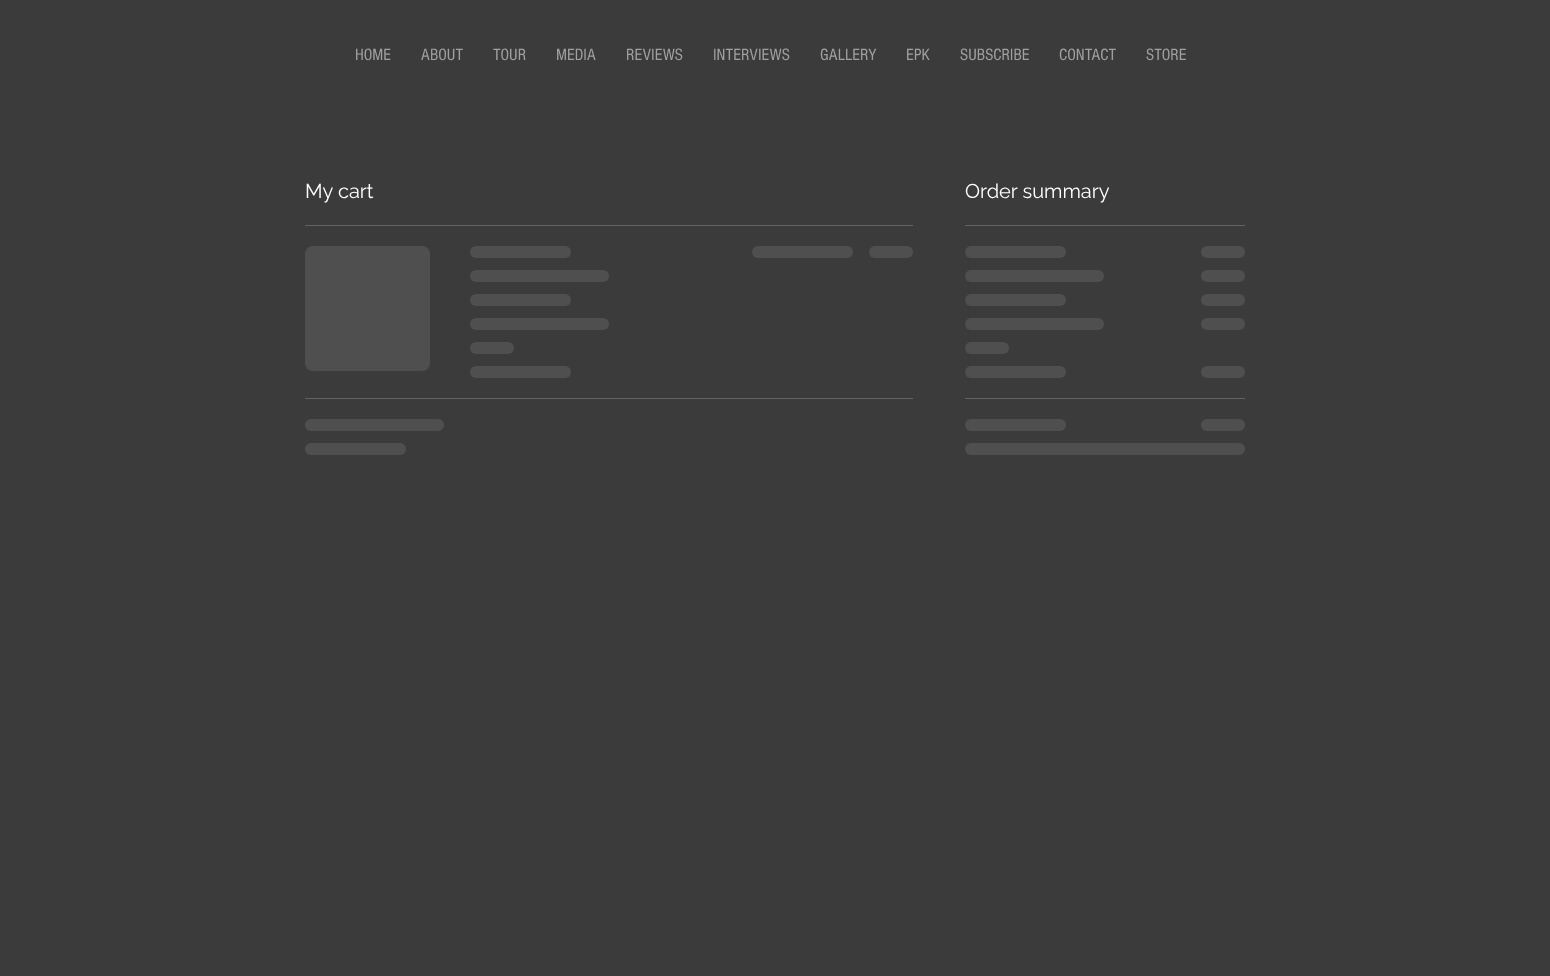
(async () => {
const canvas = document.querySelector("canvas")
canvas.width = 1550
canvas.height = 976
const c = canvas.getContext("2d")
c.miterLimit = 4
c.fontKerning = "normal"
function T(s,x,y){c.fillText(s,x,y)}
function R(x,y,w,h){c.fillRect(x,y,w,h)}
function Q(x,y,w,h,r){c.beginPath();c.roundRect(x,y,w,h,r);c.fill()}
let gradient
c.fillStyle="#3b3b3b"
R(0,0,1550,976)
c.font="17px 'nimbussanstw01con'"
c.fillStyle="#a0a09f"
T("HOME",355,60)
T("ABOUT",421,60)
T("TOUR",493,60)
T("MEDIA",556,60)
T("REVIEWS",626,60)
T("INTERVIEWS",713,60)
T("GALLERY",820,60)
T("EPK",906,60)
T("SUBSCRIBE",960,60)
T("CONTACT",1059,60)
T("STORE",1146,60)
c.fillStyle="#626262"
R(305,225,608,1)
c.font="20px Raleway"
c.fillStyle="#fff"
T("My cart",305,198)
gradient = c.createLinearGradient(305,309,805,309)
gradient.addColorStop(.25,"#4f4f4f")
gradient.addColorStop(.37,"#626262")
gradient.addColorStop(.63,"#4f4f4f")
c.fillStyle = gradient
Q(305,246,125,125,8)
gradient = c.createLinearGradient(470,252,874,252)
gradient.addColorStop(.25,"#4f4f4f")
gradient.addColorStop(.37,"#626262")
gradient.addColorStop(.63,"#4f4f4f")
c.fillStyle = gradient
Q(470,246,101,12,6)
gradient = c.createLinearGradient(470,276,1026,276)
gradient.addColorStop(.25,"#4f4f4f")
gradient.addColorStop(.37,"#626262")
gradient.addColorStop(.63,"#4f4f4f")
c.fillStyle = gradient
Q(470,270,139,12,6)
gradient = c.createLinearGradient(470,300,874,300)
gradient.addColorStop(.25,"#4f4f4f")
gradient.addColorStop(.37,"#626262")
gradient.addColorStop(.63,"#4f4f4f")
c.fillStyle = gradient
Q(470,294,101,12,6)
gradient = c.createLinearGradient(470,324,1026,324)
gradient.addColorStop(.25,"#4f4f4f")
gradient.addColorStop(.37,"#626262")
gradient.addColorStop(.63,"#4f4f4f")
c.fillStyle = gradient
Q(470,318,139,12,6)
gradient = c.createLinearGradient(470,348,646,348)
gradient.addColorStop(.25,"#4f4f4f")
gradient.addColorStop(.37,"#626262")
gradient.addColorStop(.63,"#4f4f4f")
c.fillStyle = gradient
Q(470,342,44,12,6)
gradient = c.createLinearGradient(470,372,874,372)
gradient.addColorStop(.25,"#4f4f4f")
gradient.addColorStop(.37,"#626262")
gradient.addColorStop(.63,"#4f4f4f")
c.fillStyle = gradient
Q(470,366,101,12,6)
gradient = c.createLinearGradient(752,252,1156,252)
gradient.addColorStop(.25,"#4f4f4f")
gradient.addColorStop(.37,"#626262")
gradient.addColorStop(.63,"#4f4f4f")
c.fillStyle = gradient
Q(752,246,101,12,6)
gradient = c.createLinearGradient(869,252,1045,252)
gradient.addColorStop(.25,"#4f4f4f")
gradient.addColorStop(.37,"#626262")
gradient.addColorStop(.63,"#4f4f4f")
c.fillStyle = gradient
Q(869,246,44,12,6)
c.fillStyle="#626262"
R(305,398,608,1)
gradient = c.createLinearGradient(305,425,861,425)
gradient.addColorStop(.25,"#4f4f4f")
gradient.addColorStop(.37,"#626262")
gradient.addColorStop(.63,"#4f4f4f")
c.fillStyle = gradient
Q(305,419,139,12,6)
gradient = c.createLinearGradient(305,449,709,449)
gradient.addColorStop(.25,"#4f4f4f")
gradient.addColorStop(.37,"#626262")
gradient.addColorStop(.63,"#4f4f4f")
c.fillStyle = gradient
Q(305,443,101,12,6)
c.fillStyle="#626262"
R(965,225,280,1)
c.fillStyle="#fff"
T("Order summary",965,198)
gradient = c.createLinearGradient(965,252,1369,252)
gradient.addColorStop(.25,"#4f4f4f")
gradient.addColorStop(.37,"#626262")
gradient.addColorStop(.63,"#4f4f4f")
c.fillStyle = gradient
Q(965,246,101,12,6)
gradient = c.createLinearGradient(1201,252,1377,252)
gradient.addColorStop(.25,"#4f4f4f")
gradient.addColorStop(.37,"#626262")
gradient.addColorStop(.63,"#4f4f4f")
c.fillStyle = gradient
Q(1201,246,44,12,6)
gradient = c.createLinearGradient(965,276,1521,276)
gradient.addColorStop(.25,"#4f4f4f")
gradient.addColorStop(.37,"#626262")
gradient.addColorStop(.63,"#4f4f4f")
c.fillStyle = gradient
Q(965,270,139,12,6)
gradient = c.createLinearGradient(1201,276,1377,276)
gradient.addColorStop(.25,"#4f4f4f")
gradient.addColorStop(.37,"#626262")
gradient.addColorStop(.63,"#4f4f4f")
c.fillStyle = gradient
Q(1201,270,44,12,6)
gradient = c.createLinearGradient(965,300,1369,300)
gradient.addColorStop(.25,"#4f4f4f")
gradient.addColorStop(.37,"#626262")
gradient.addColorStop(.63,"#4f4f4f")
c.fillStyle = gradient
Q(965,294,101,12,6)
gradient = c.createLinearGradient(1201,300,1377,300)
gradient.addColorStop(.25,"#4f4f4f")
gradient.addColorStop(.37,"#626262")
gradient.addColorStop(.63,"#4f4f4f")
c.fillStyle = gradient
Q(1201,294,44,12,6)
gradient = c.createLinearGradient(965,324,1521,324)
gradient.addColorStop(.25,"#4f4f4f")
gradient.addColorStop(.37,"#626262")
gradient.addColorStop(.63,"#4f4f4f")
c.fillStyle = gradient
Q(965,318,139,12,6)
gradient = c.createLinearGradient(1201,324,1377,324)
gradient.addColorStop(.25,"#4f4f4f")
gradient.addColorStop(.37,"#626262")
gradient.addColorStop(.63,"#4f4f4f")
c.fillStyle = gradient
Q(1201,318,44,12,6)
gradient = c.createLinearGradient(965,348,1141,348)
gradient.addColorStop(.25,"#4f4f4f")
gradient.addColorStop(.37,"#626262")
gradient.addColorStop(.63,"#4f4f4f")
c.fillStyle = gradient
Q(965,342,44,12,6)
gradient = c.createLinearGradient(965,372,1369,372)
gradient.addColorStop(.25,"#4f4f4f")
gradient.addColorStop(.37,"#626262")
gradient.addColorStop(.63,"#4f4f4f")
c.fillStyle = gradient
Q(965,366,101,12,6)
gradient = c.createLinearGradient(1201,372,1377,372)
gradient.addColorStop(.25,"#4f4f4f")
gradient.addColorStop(.37,"#626262")
gradient.addColorStop(.63,"#4f4f4f")
c.fillStyle = gradient
Q(1201,366,44,12,6)
c.fillStyle="#626262"
R(965,398,280,1)
gradient = c.createLinearGradient(965,425,1369,425)
gradient.addColorStop(.25,"#4f4f4f")
gradient.addColorStop(.37,"#626262")
gradient.addColorStop(.63,"#4f4f4f")
c.fillStyle = gradient
Q(965,419,101,12,6)
gradient = c.createLinearGradient(1201,425,1377,425)
gradient.addColorStop(.25,"#4f4f4f")
gradient.addColorStop(.37,"#626262")
gradient.addColorStop(.63,"#4f4f4f")
c.fillStyle = gradient
Q(1201,419,44,12,6)
gradient = c.createLinearGradient(965,449,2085,449)
gradient.addColorStop(.25,"#4f4f4f")
gradient.addColorStop(.37,"#626262")
gradient.addColorStop(.63,"#4f4f4f")
c.fillStyle = gradient
Q(965,443,280,12,6)
})()
